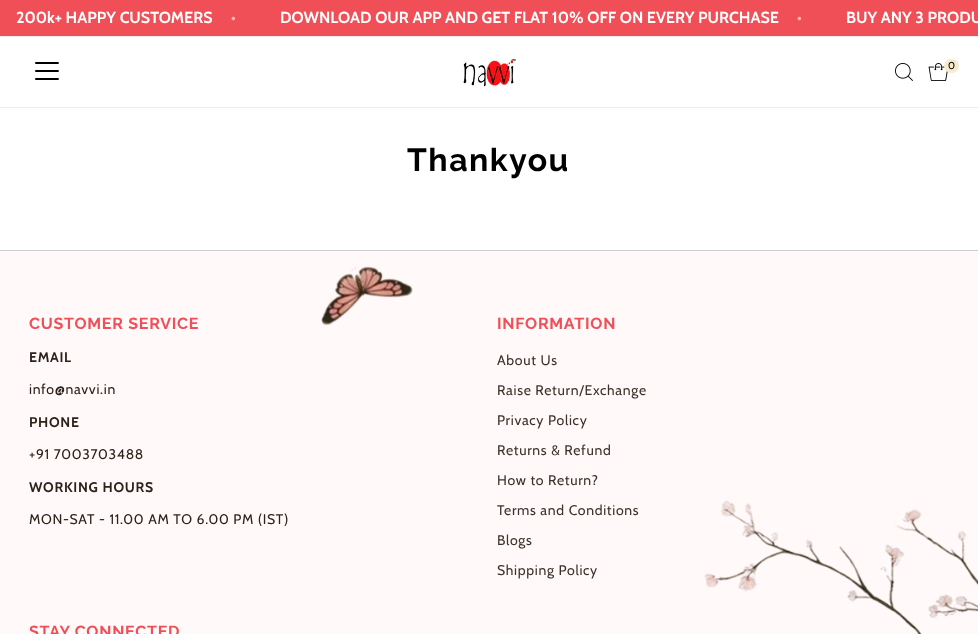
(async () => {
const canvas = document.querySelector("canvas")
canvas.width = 978
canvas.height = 634
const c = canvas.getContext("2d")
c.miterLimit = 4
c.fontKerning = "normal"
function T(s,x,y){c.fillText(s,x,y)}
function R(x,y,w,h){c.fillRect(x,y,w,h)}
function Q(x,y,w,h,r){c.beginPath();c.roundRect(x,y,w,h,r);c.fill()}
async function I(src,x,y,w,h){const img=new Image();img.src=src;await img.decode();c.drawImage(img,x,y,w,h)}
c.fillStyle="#fff"
R(0,0,978,634)
c.fillStyle="#f14f57"
R(0,0,978,36)
c.font="bold 16px Cabin"
c.fillStyle="#fff"
T("200k+ HAPPY CUSTOMERS",16,23)
c.fillStyle="#f9b9bc"
T("•",231,23)
c.fillStyle="#fff"
T("DOWNLOAD OUR APP AND GET FLAT 10% OFF ON EVERY PURCHASE",280,23)
c.fillStyle="#f9b9bc"
T("•",797,23)
c.fillStyle="#fff"
T("BUY ANY 3 PRODU",846,23)
c.fillStyle="#ececec"
R(0,36,978,1)
R(0,107,978,1)
await I("1.png",35,62,24,18)
await I("2.png",463,59,53,28)
await I("3.png",895,63,18,18)
await I("4.png",928,63,20,18)
c.fillStyle="#f8eace"
Q(944,59,15,14,7)
c.letterSpacing="0.7px"
c.font="10px Cabin"
c.fillStyle="#000"
T("0",948,69)
c.letterSpacing="1.5px"
c.font="bold 32px Raleway"
T("Thankyou",407,171)
c.fillStyle="#fff9fa"
R(0,251,978,383)
await I("5.png",321,266,657,368)
c.fillStyle="#ccc"
R(0,250,978,1)
c.letterSpacing="0.75px"
c.font="bold 16px Raleway"
c.fillStyle="#f14f57"
T("CUSTOMER SERVICE",29,329)
c.letterSpacing="0.7px"
c.font="bold 14px Cabin"
c.fillStyle="#2c221a"
T("EMAIL",29,362)
c.font="14px Cabin"
T("info@navvi.in",29,394)
c.font="bold 14px Cabin"
T("PHONE",29,427)
c.font="14px Cabin"
T("+91 7003703488",29,459)
c.font="bold 14px Cabin"
T("WORKING HOURS",29,492)
c.font="14px Cabin"
T("MON-SAT - 11.00 AM TO 6.00 PM (IST)",29,524)
c.letterSpacing="0.75px"
c.font="bold 16px Raleway"
c.fillStyle="#f14f57"
T("INFORMATION",497,329)
c.letterSpacing="0.7px"
c.font="14px Cabin"
c.fillStyle="#3c322a"
T("About Us",497,365)
T("Raise Return/Exchange",497,395)
T("Privacy Policy",497,425)
T("Returns & Refund",497,455)
T("How to Return?",497,485)
T("Terms and Conditions",497,515)
T("Blogs",497,545)
T("Shipping Policy",497,575)
c.letterSpacing="0.75px"
c.font="bold 16px Raleway"
c.fillStyle="#f14f57"
T("STAY CONNECTED",29,637)
})()
